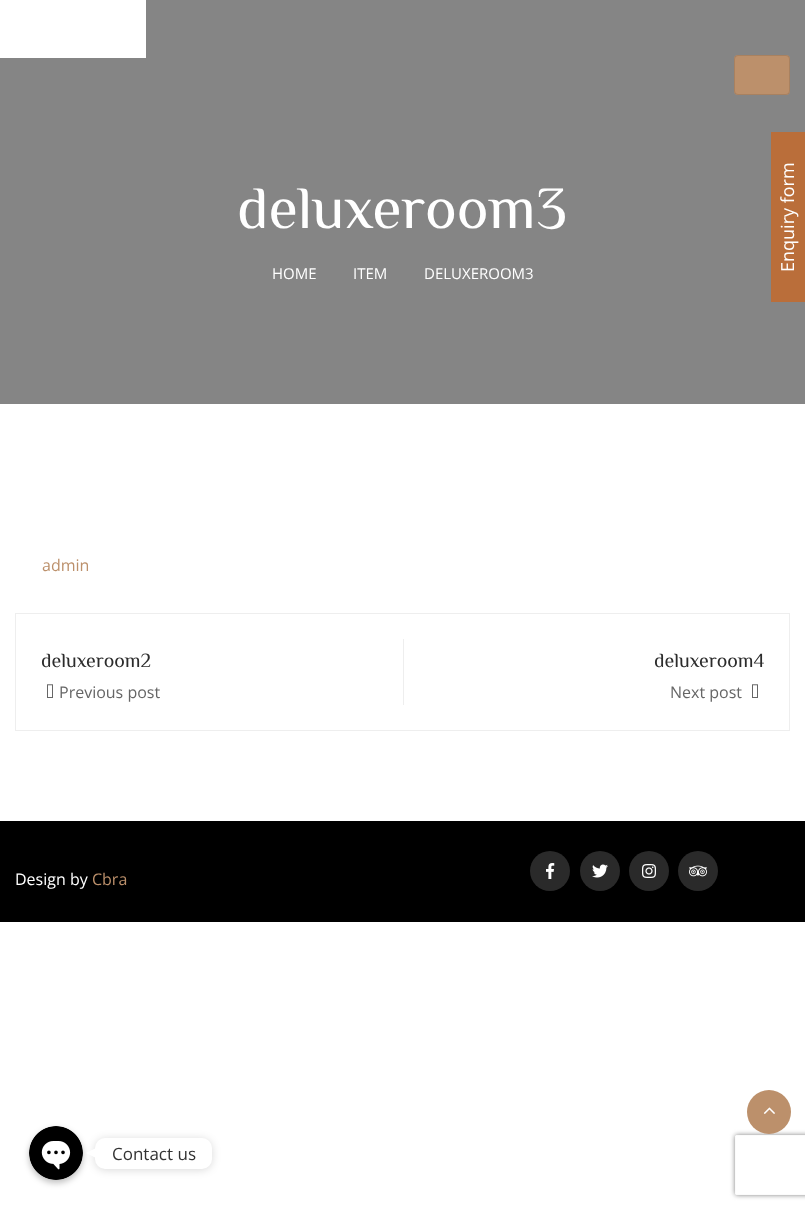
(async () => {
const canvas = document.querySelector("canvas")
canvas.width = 805
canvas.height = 1209
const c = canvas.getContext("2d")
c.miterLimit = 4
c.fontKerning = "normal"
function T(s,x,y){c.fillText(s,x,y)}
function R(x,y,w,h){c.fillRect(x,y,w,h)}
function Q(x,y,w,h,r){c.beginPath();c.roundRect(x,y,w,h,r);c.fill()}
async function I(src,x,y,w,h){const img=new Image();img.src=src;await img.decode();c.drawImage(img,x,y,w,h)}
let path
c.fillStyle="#fff"
R(0,0,805,1209)
c.fillStyle="#858585"
R(0,0,805,404)
c.fillStyle="#fff"
R(0,0,146,58)
c.fillStyle="#bc906b"
Q(734,55,56,40,4)
c.beginPath()
c.roundRect(734.5,55.5,55,39,3.5)
c.strokeStyle="#0000001a"
c.stroke()
c.font="60px ZCOOL XiaoWei"
c.fillStyle="#fff"
T("deluxeroom3",237,228)
c.font="15px Open Sans"
T("HOME",272,279)
T("ITEM",353,279)
T("DELUXEROOM3",424,279)
c.fillStyle="#ba6e3a"
R(771,132,34,170)
c.font="18px Open Sans"
c.fillStyle="#fff"
c.save()
c.translate(794,272)
c.rotate(-90 * Math.PI / 180)
c.fillText("Enquiry form",0,0)
c.restore()
c.font="16px Open Sans"
c.fillStyle="#bc906b"
T("admin",42,571)
c.strokeStyle="#eee"
c.strokeRect(15.5,613.5,774,117)
c.font="20px ZCOOL XiaoWei"
c.fillStyle="#2c2c2c"
T("deluxeroom2",41,667)
await I("1.png",47,684,6,14)
c.font="16px Open Sans"
c.fillStyle="#666"
T("Previous post",59,698)
c.fillStyle="#eee"
R(403,639,1,66)
c.font="20px ZCOOL XiaoWei"
c.fillStyle="#2c2c2c"
T("deluxeroom4",654,667)
c.font="16px Open Sans"
c.fillStyle="#666"
T("Next post",670,698)
await I("1.png",752,684,6,14)
c.fillStyle="#000"
R(0,821,805,101)
c.fillStyle="#fff"
T("Design by",15,885)
c.fillStyle="#bc906b"
T("Cbra",92,885)
c.fillStyle="#2a2a2a"
c.beginPath()
c.arc(550,871,20,0,7)
c.fill()
await I("2.png",546,863,9,16)
c.beginPath()
c.arc(600,871,20,0,7)
c.fill()
await I("3.png",592,864,16,14)
c.beginPath()
c.arc(649,871,20,0,7)
c.fill()
await I("4.png",642,864,14,14)
c.beginPath()
c.arc(698,871,20,0,7)
c.fill()
await I("5.png",689,865,18,12)
c.save()
path = new Path2D("M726 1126h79v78h-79zm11 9h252c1 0 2 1 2 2v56c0 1-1 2-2 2h-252c-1 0-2-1-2-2v-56c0-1 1-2 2-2z")
c.clip(path,"evenodd")
c.fillStyle="#808080"
c.filter="blur(2.5px)"
c.beginPath()
c.roundRect(735,1135,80,60,2)
c.fill()
c.filter="none"
c.restore()
c.fillStyle="#bc906b"
c.beginPath()
c.arc(769,1112,22,0,7)
c.fill()
await I("6.png",763,1107,12,7)
c.fillStyle="#00000040"
c.filter="blur(3px)"
c.beginPath()
c.roundRect(29,1129,54,54,27)
c.fill()
c.filter="none"
await I("7.png",29,1126,54,54)
c.fillStyle="#00000026"
c.filter="blur(4px)"
c.beginPath()
c.roundRect(95,1139,117,31,10)
c.fill()
c.filter="none"
c.fillStyle="#fff"
Q(95,1138,117,31,10)
c.font="17px Open Sans"
c.fillStyle="#333"
T("Contact us",112,1160)
c.fillStyle="#fff"
path = new Path2D("M96 1148v10l-10-5z")
c.fill(path)
c.fillStyle="#fbfbfb"
path = new Path2D("M737 1135l-2 1v58l2 1h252c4 0 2-7 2-11v-38c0-4 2-11-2-11zm-1 1v58h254v-58z")
c.fill(path,"evenodd")
})()
